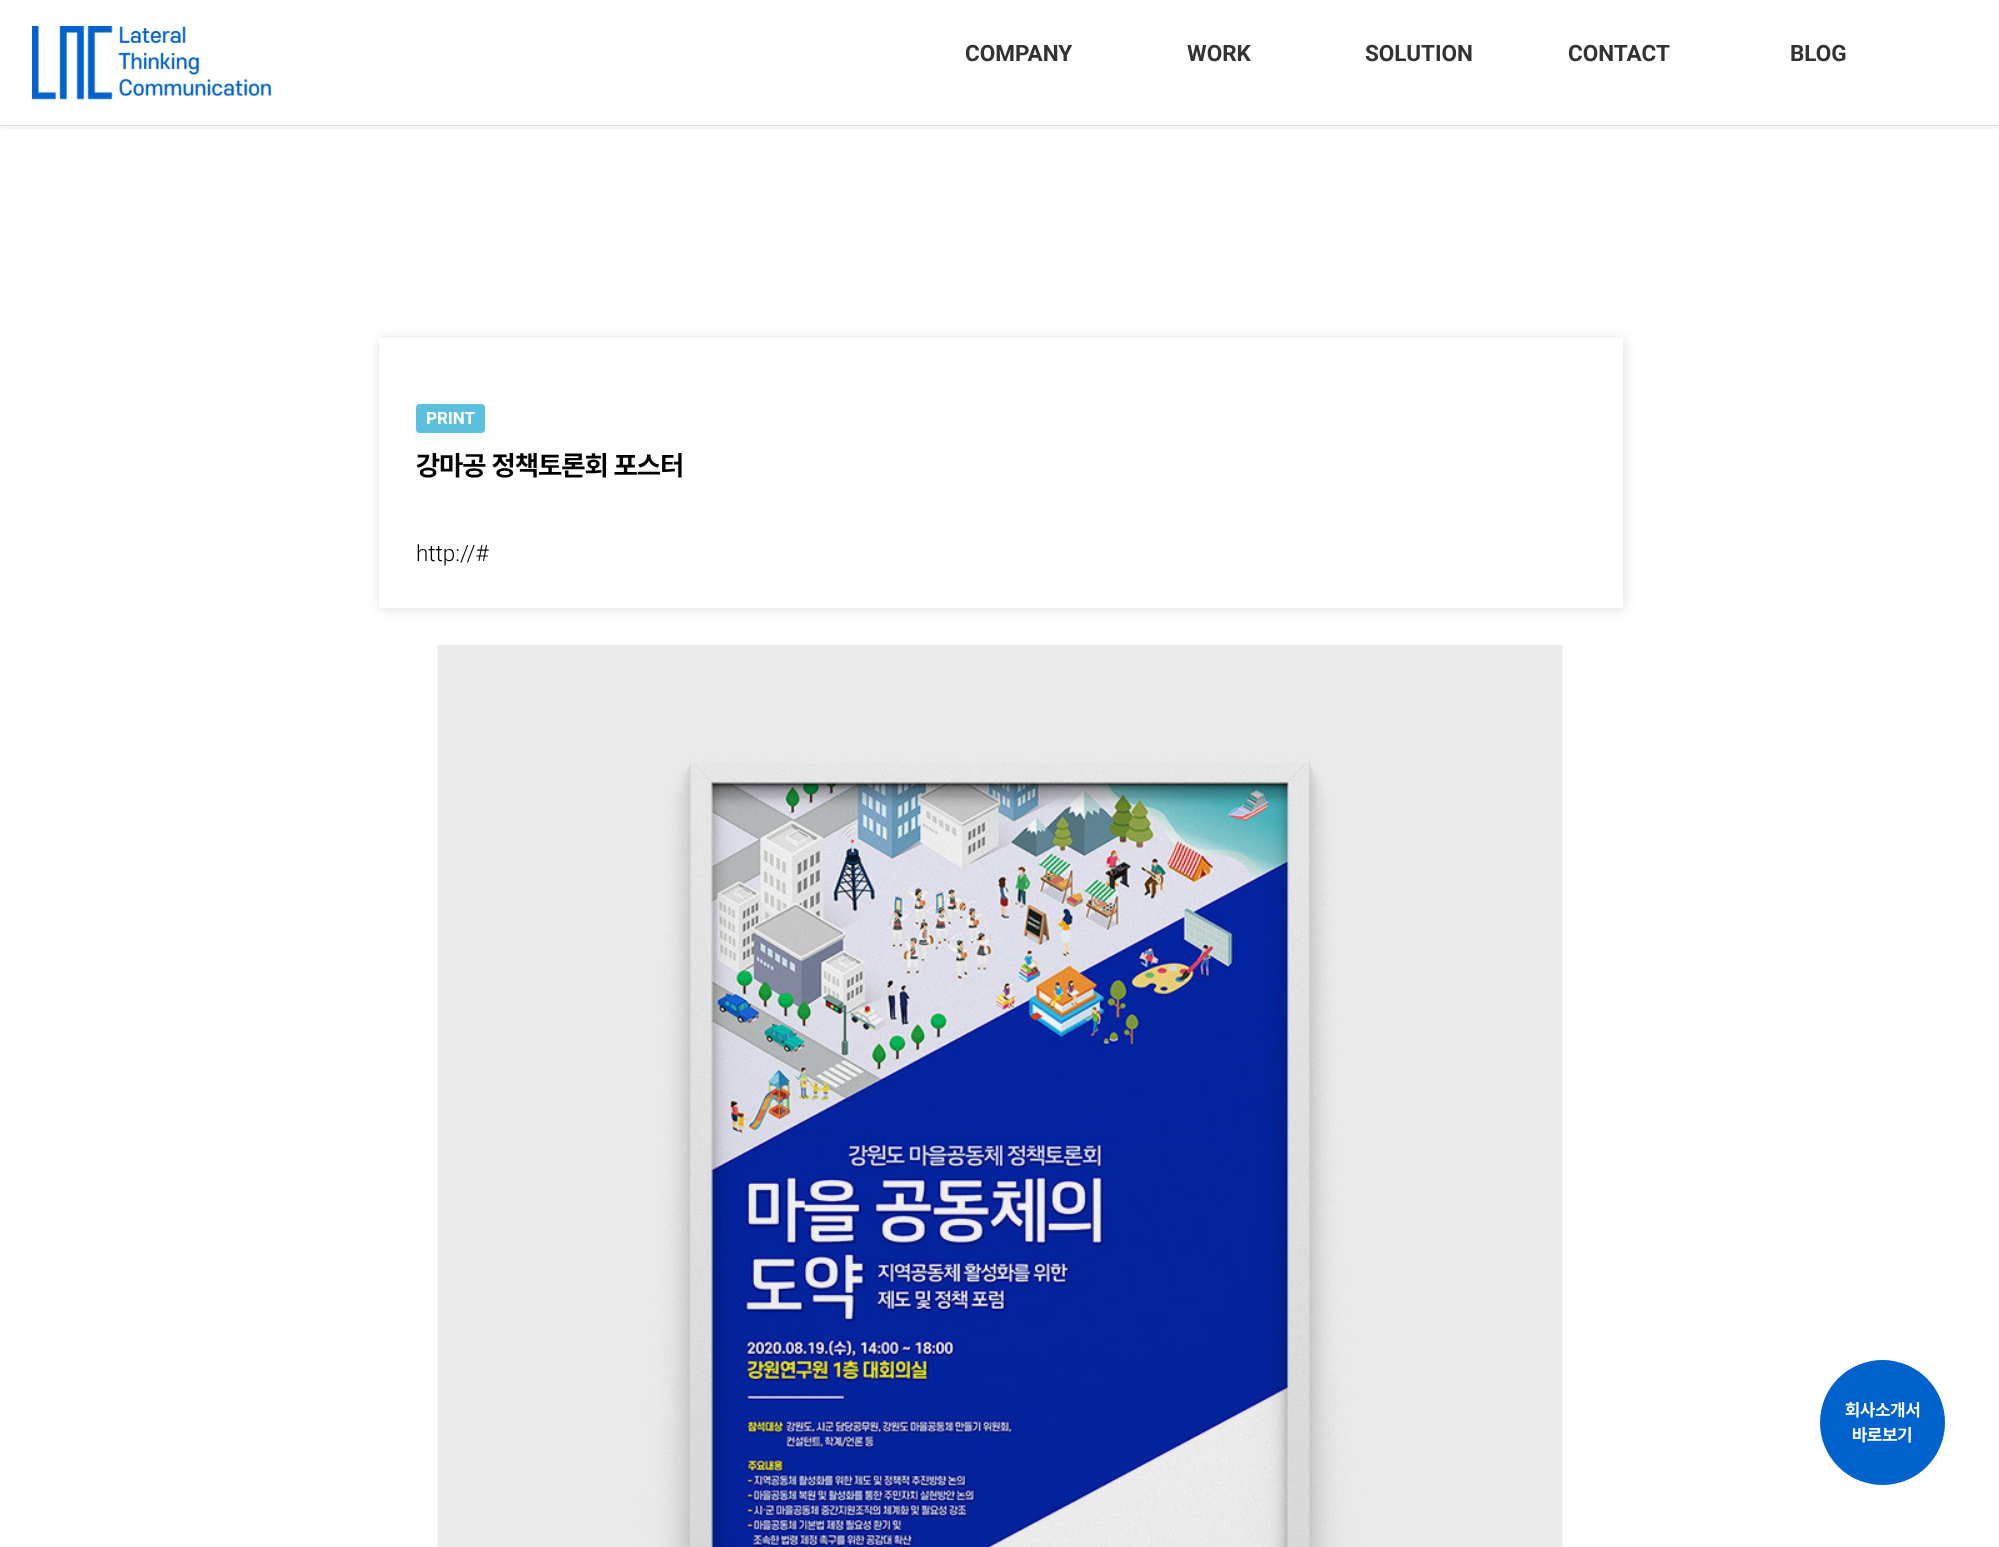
(async () => {
const canvas = document.querySelector("canvas")
canvas.width = 1999
canvas.height = 1547
const c = canvas.getContext("2d")
c.miterLimit = 4
c.fontKerning = "normal"
function T(s,x,y){c.fillText(s,x,y)}
function R(x,y,w,h){c.fillRect(x,y,w,h)}
function Q(x,y,w,h,r){c.beginPath();c.roundRect(x,y,w,h,r);c.fill()}
async function I(src,x,y,w,h){const img=new Image();img.src=src;await img.decode();c.drawImage(img,x,y,w,h)}
c.fillStyle="#fff"
R(0,0,1999,1547)
c.save()
c.beginPath()
c.rect(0,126,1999,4)
c.clip()
c.fillStyle="#00000012"
c.filter="blur(3px)"
c.beginPath()
c.rect(0,1,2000,127)
c.fill()
c.filter="none"
c.restore()
c.fillStyle="#ddd"
R(0,125,1999,1)
await I("1.png",32,26,240,74)
c.font="bold 22.5px Roboto"
c.fillStyle="#333"
T("COMPANY",965,61)
T("WORK",1187,61)
T("SOLUTION",1365,61)
T("CONTACT",1568,61)
T("BLOG",1790,61)
c.fillStyle="#ddd"
c.filter="blur(6px)"
c.beginPath()
c.rect(380,339,1244,270)
c.fill()
c.filter="none"
c.fillStyle="#fff"
R(379,338,1244,270)
c.fillStyle="#5bc0de"
Q(416,404,69,29,4)
c.font="bold 17px Roboto"
c.fillStyle="#fff"
T("PRINT",426,424)
c.letterSpacing="-0.5px"
c.font="bold 27.5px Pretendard"
c.fillStyle="#000"
T("강마공 정책토론회 포스터",416,475)
c.letterSpacing="0px"
c.font="300 22.5px Roboto"
T("http://#",416,561)
await I("2.png",437,645,1126,902)
c.fillStyle="#0062cc"
c.beginPath()
c.arc(1882.5,1422.5,62.5,0,7)
c.fill()
c.font="bold 17.5px Pretendard"
c.fillStyle="#fff"
T("회사소개서",1845,1416)
T("바로보기",1852,1441)
})()
